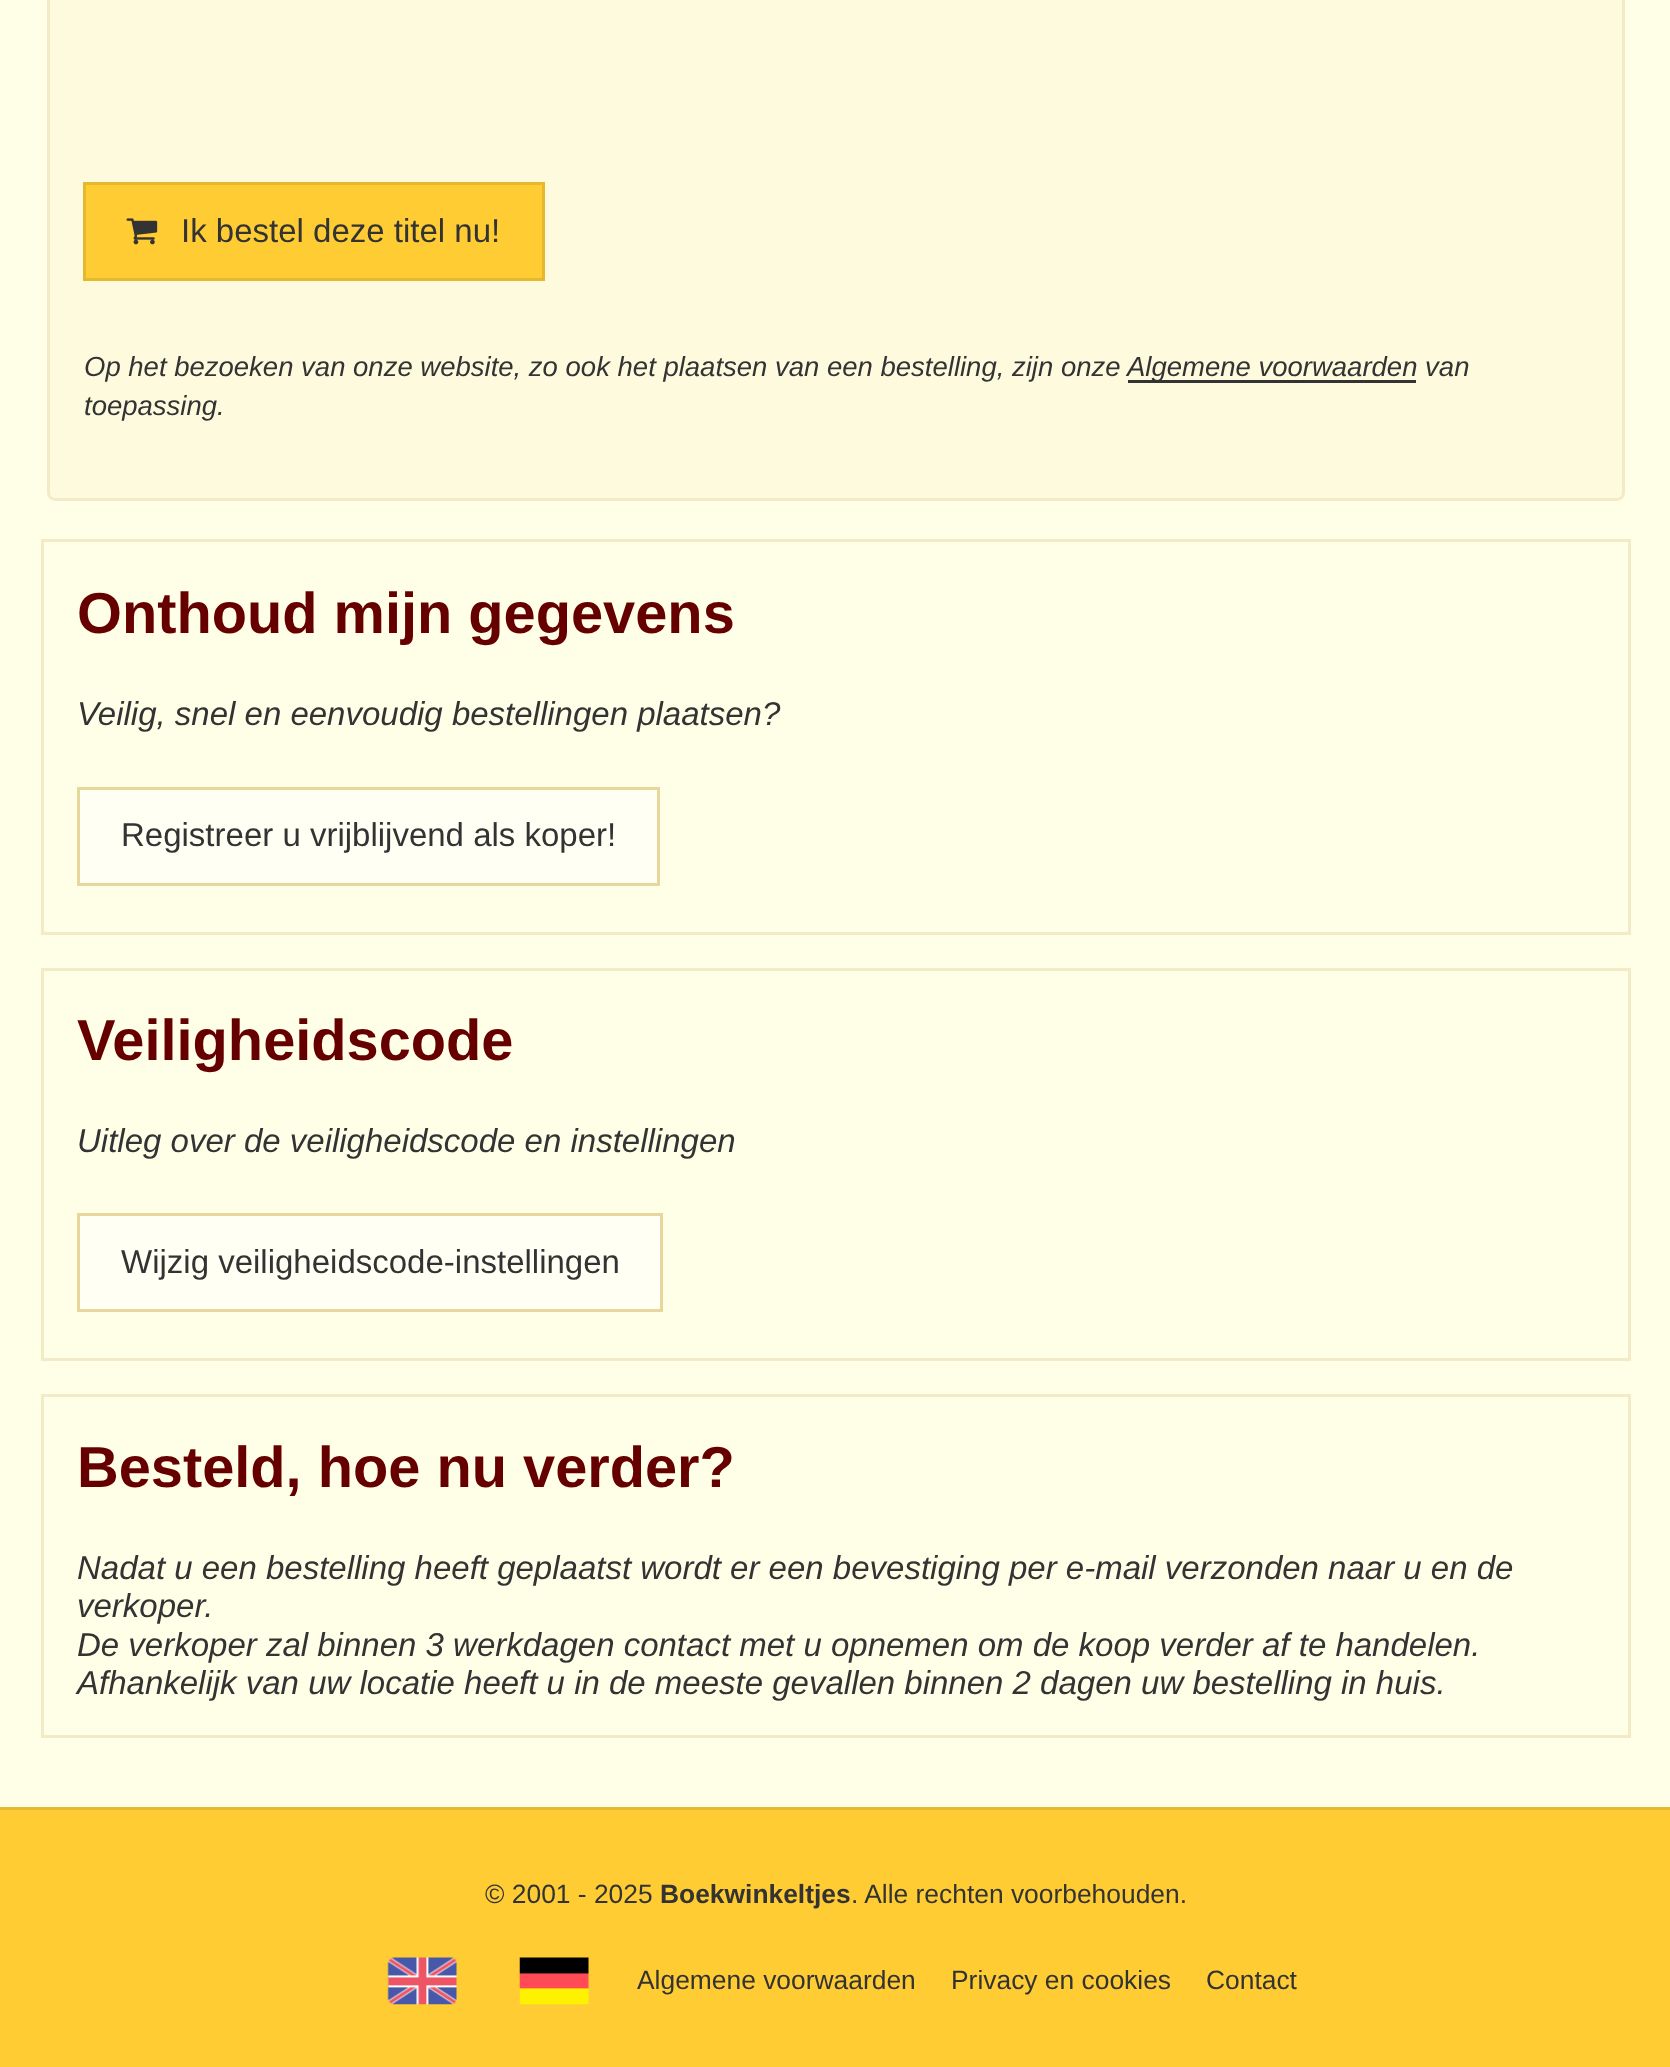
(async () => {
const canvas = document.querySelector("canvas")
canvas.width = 1670
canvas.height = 2067
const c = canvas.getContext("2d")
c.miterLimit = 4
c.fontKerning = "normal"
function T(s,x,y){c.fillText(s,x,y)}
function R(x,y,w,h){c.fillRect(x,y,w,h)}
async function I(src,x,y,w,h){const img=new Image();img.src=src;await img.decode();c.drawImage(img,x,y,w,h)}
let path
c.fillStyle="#ffffe8"
R(0,0,1670,2067)
c.fillStyle="#fdfade"
path = new Path2D("M48.5-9.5h1575v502.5c0 3.5-3 6.5-6.5 6.5h-1562c-3.5 0-6.5-3-6.5-6.5z")
c.fill(path)
c.strokeStyle="#f3eac8"
c.lineWidth=3
c.stroke(path)
c.fillStyle="#fc3"
c.beginPath()
c.rect(84.5,183.5,459,96)
c.fill()
c.strokeStyle="#e6b82e"
c.stroke()
await I("1.png",126,218,32,27)
c.font="33px Liberation Sans"
c.fillStyle="#333"
T("Ik bestel deze titel nu!",181,242)
c.font="italic 27.5px Liberation Sans"
T("Op het bezoeken van onze website, zo ook het plaatsen van een bestelling, zijn onze",84,376)
R(1128,380,288,3)
T("Algemene voorwaarden van",1127,376)
T("toepassing.",84,415)
c.strokeStyle="#f3eac8"
c.strokeRect(42.5,540.5,1587,393)
c.font="bold 57.75px Liberation Sans"
c.fillStyle="#600"
T("Onthoud mijn gegevens",77,633)
c.font="italic 33px Liberation Sans"
c.fillStyle="#333"
T("Veilig, snel en eenvoudig bestellingen plaatsen?",77,725)
c.fillStyle="#fffff4"
c.beginPath()
c.rect(78.5,788.5,580,96)
c.fill()
c.strokeStyle="#e8d79d"
c.stroke()
c.font="33px Liberation Sans"
c.fillStyle="#333"
T("Registreer u vrijblijvend als koper!",121,846)
c.strokeStyle="#f3eac8"
c.strokeRect(42.5,969.5,1587,390)
c.font="bold 57.75px Liberation Sans"
c.fillStyle="#600"
T("Veiligheidscode",77,1060)
c.font="italic 33px Liberation Sans"
c.fillStyle="#333"
T("Uitleg over de veiligheidscode en instellingen",77,1152)
c.fillStyle="#fffff4"
c.beginPath()
c.rect(78.5,1214.5,583,96)
c.fill()
c.strokeStyle="#e8d79d"
c.stroke()
c.font="33px Liberation Sans"
c.fillStyle="#333"
T("Wijzig veiligheidscode-instellingen",121,1273)
c.strokeStyle="#f3eac8"
c.strokeRect(42.5,1395.5,1587,341)
c.font="bold 57.75px Liberation Sans"
c.fillStyle="#600"
T("Besteld, hoe nu verder?",77,1487)
c.font="italic 33px Liberation Sans"
c.fillStyle="#333"
T("Nadat u een bestelling heeft geplaatst wordt er een bevestiging per e-mail verzonden naar u en de",77,1579)
T("verkoper.",77,1617)
T("De verkoper zal binnen 3 werkdagen contact met u opnemen om de koop verder af te handelen.",77,1656)
T("Afhankelijk van uw locatie heeft u in de meeste gevallen binnen 2 dagen uw bestelling in huis.",77,1694)
c.fillStyle="#fc3"
R(0,1810,1670,257)
c.fillStyle="#e6b82e"
R(0,1807,1670,3)
c.font="26.4px Liberation Sans"
c.fillStyle="#333"
T("© 2001 - 2025",485,1903)
c.font="bold 26.4px Liberation Sans"
T("Boekwinkeltjes",660,1903)
c.font="26.4px Liberation Sans"
T(". Alle rechten voorbehouden.",851,1903)
await I("2.png",387,1957,70,48)
await I("3.png",519,1957,70,48)
T("Algemene voorwaarden",637,1989)
T("Privacy en cookies",951,1989)
T("Contact",1206,1989)
})()
